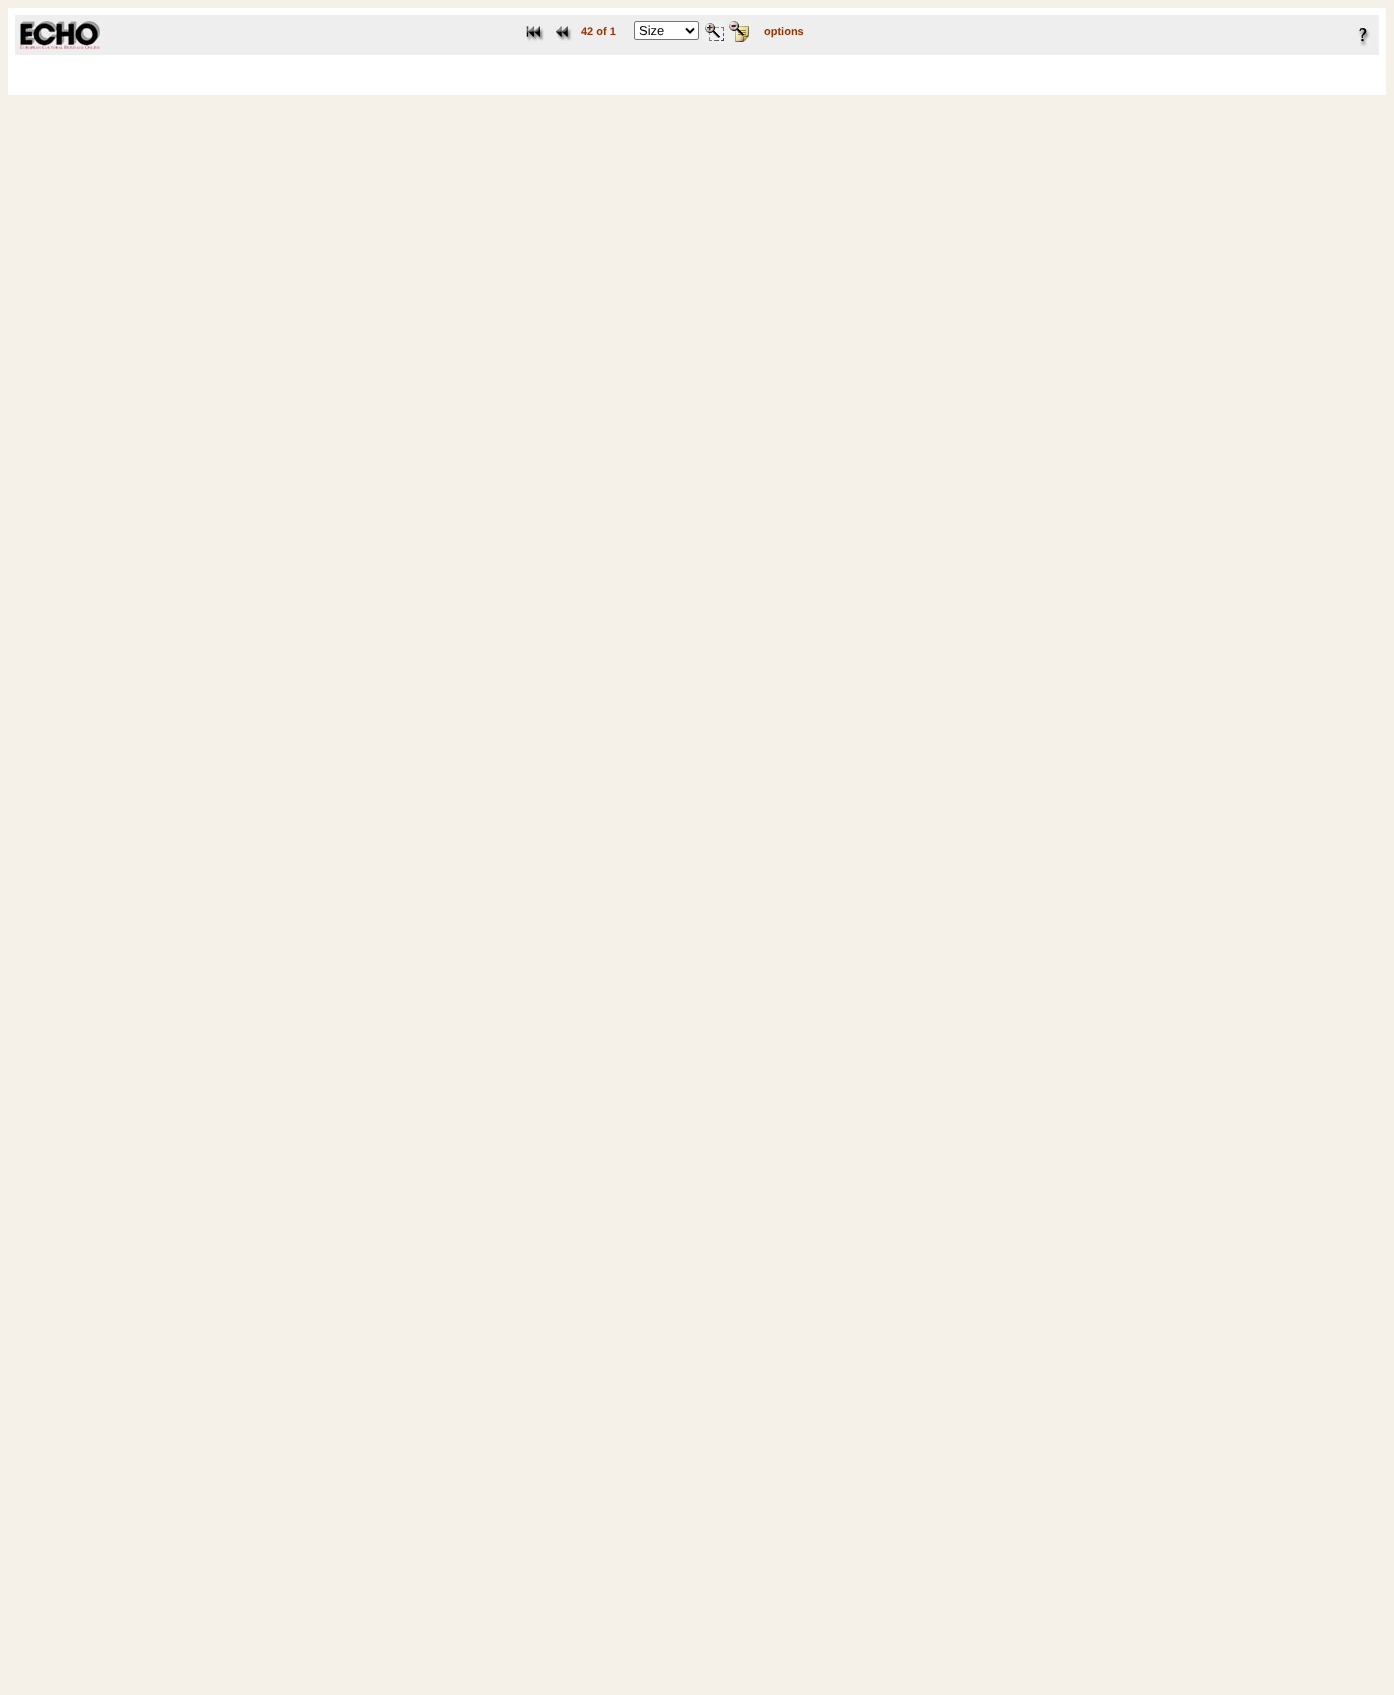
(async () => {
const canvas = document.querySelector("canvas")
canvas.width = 1394
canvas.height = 1695
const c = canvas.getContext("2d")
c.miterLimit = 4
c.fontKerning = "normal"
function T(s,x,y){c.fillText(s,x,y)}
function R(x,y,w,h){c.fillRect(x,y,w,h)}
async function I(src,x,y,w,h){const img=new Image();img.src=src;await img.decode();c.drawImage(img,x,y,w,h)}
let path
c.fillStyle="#f5f1e9"
R(0,0,1394,1695)
c.fillStyle="#fff"
R(8,8,1378,87)
c.fillStyle="#eee"
R(15,15,1364,40)
await I("1.png",20,21,80,28)
await I("2.png",522,23,22,19)
await I("3.png",551,25,21,16)
c.font="bold 11px Liberation Sans"
c.fillStyle="#930"
T("42 of 1",581,35)
c.fillStyle="#fff"
c.beginPath()
c.roundRect(634.5,21.5,64,18,1.5)
c.fill()
c.strokeStyle="#767676"
c.stroke()
path = new Path2D("M686 28.5l4 4l4-4")
c.strokeStyle="#000"
c.lineWidth=2
c.stroke(path)
c.font="13px Liberation Sans"
c.fillStyle="#000"
T("Size",639,35)
await I("4.png",702,21,23,21)
await I("5.png",728,20,23,23)
c.font="bold 11px Liberation Sans"
c.fillStyle="#930"
T("options",764,35)
await I("6.png",1358,25,12,22)
})()
